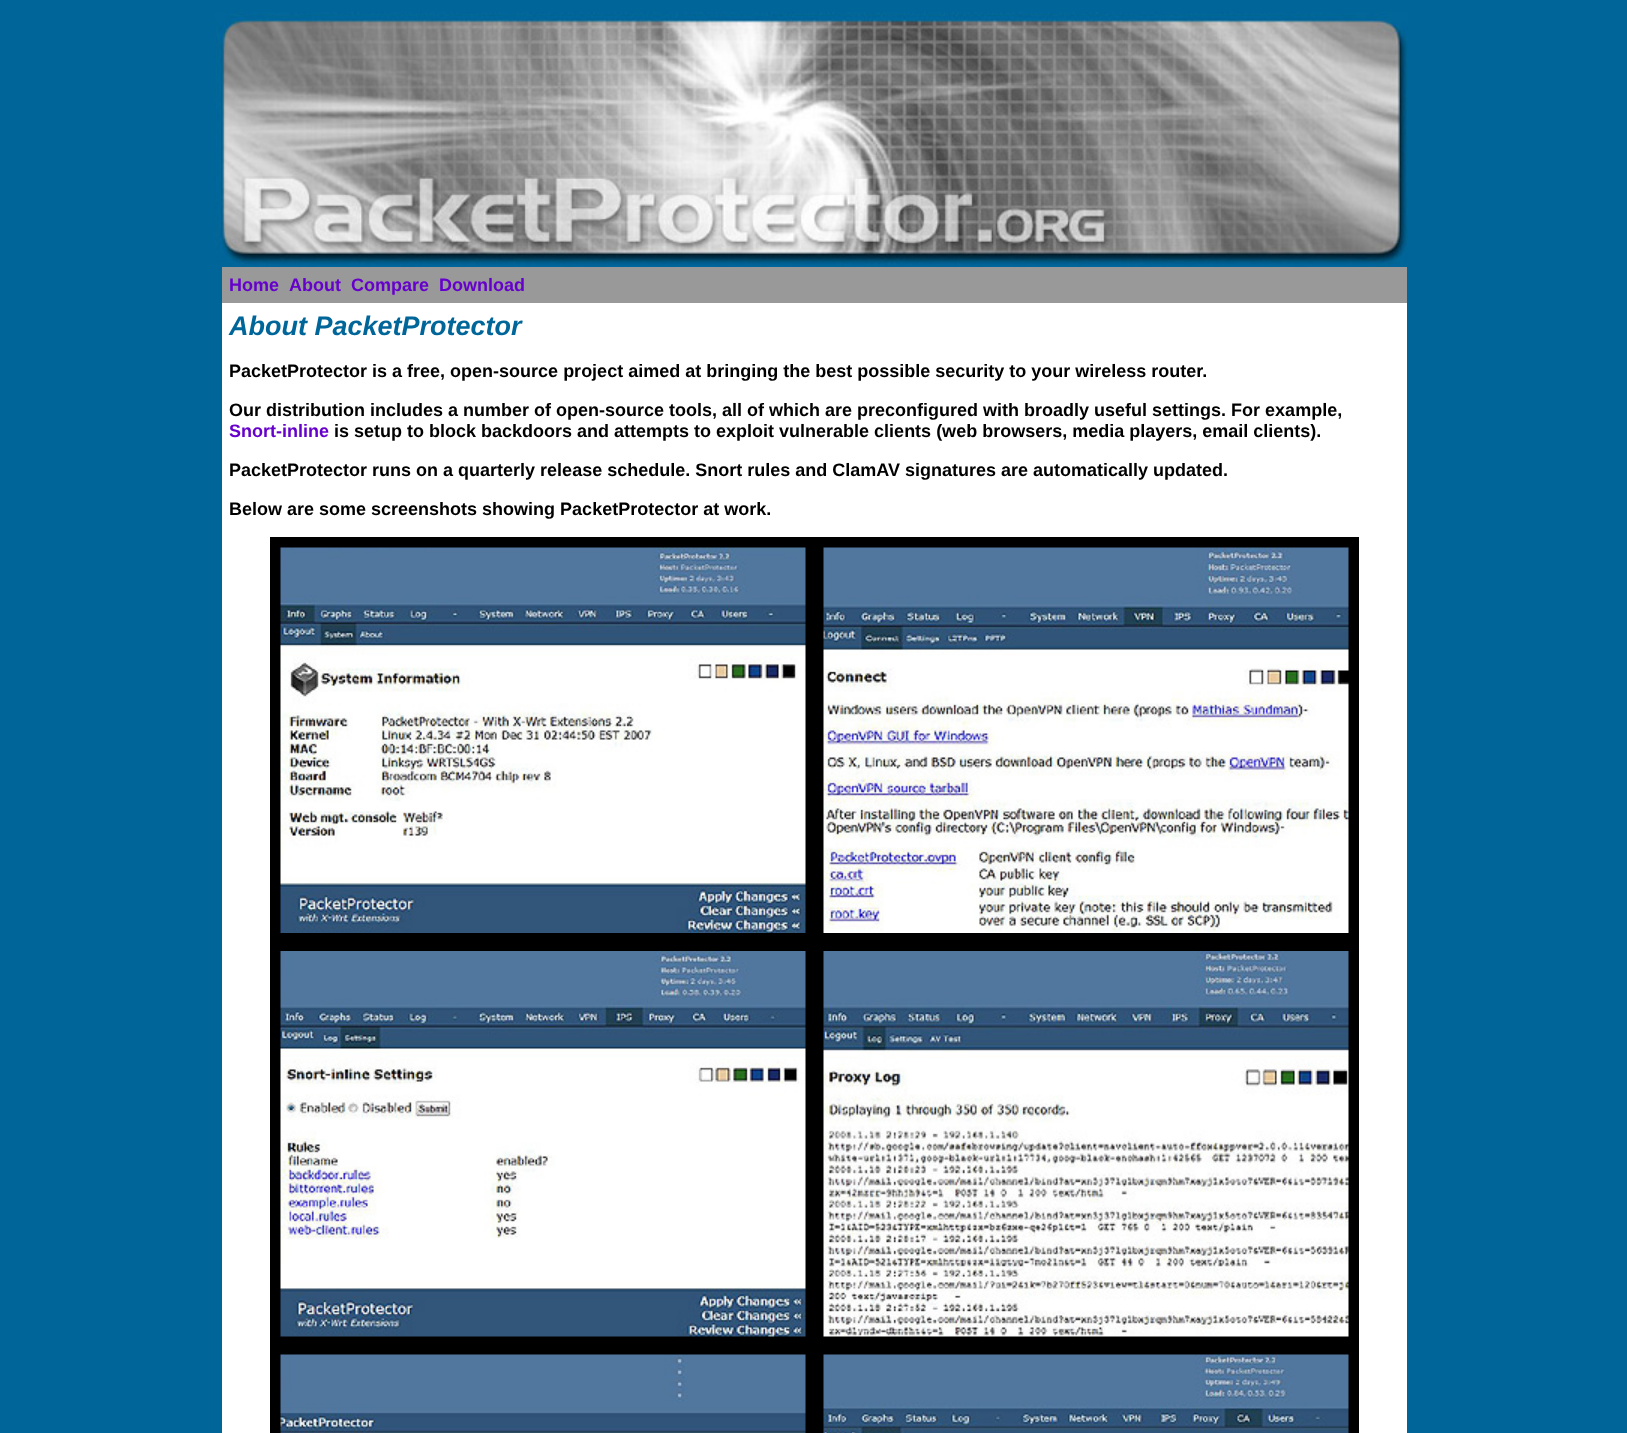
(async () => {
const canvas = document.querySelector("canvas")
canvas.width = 1627
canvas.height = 1433
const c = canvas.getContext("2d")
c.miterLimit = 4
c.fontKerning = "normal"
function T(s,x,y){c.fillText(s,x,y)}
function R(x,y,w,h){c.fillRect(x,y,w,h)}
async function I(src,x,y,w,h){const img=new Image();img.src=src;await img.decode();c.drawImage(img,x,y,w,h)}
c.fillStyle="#069"
R(0,0,1627,1433)
await I("1.png",214,12,1194,255)
c.fillStyle="#999"
R(222,267,1185,36)
c.font="bold 18px Liberation Sans"
c.fillStyle="#60c"
T("Home",229,291)
T("About",289,291)
T("Compare",351,291)
T("Download",439,291)
c.fillStyle="#fff"
R(222,303,1185,1130)
c.font="italic bold 27px Liberation Sans"
c.fillStyle="#069"
T("About PacketProtector",229,335)
c.font="bold 18px Liberation Sans"
c.fillStyle="#000"
T("PacketProtector is a free, open-source project aimed at bringing the best possible security to your wireless router.",229,377)
T("Our distribution includes a number of open-source tools, all of which are preconfigured with broadly useful settings. For example,",229,416)
c.fillStyle="#60c"
T("Snort-inline",229,437)
c.fillStyle="#000"
T("is setup to block backdoors and attempts to exploit vulnerable clients (web browsers, media players, email clients).",334,437)
T("PacketProtector runs on a quarterly release schedule. Snort rules and ClamAV signatures are automatically updated.",229,476)
T("Below are some screenshots showing PacketProtector at work.",229,515)
R(270,537,1089,896)
await I("2.png",280,547,526,386)
await I("3.png",823,547,526,386)
await I("4.png",280,951,526,386)
await I("5.png",823,951,526,386)
await I("6.png",280,1354,526,79)
await I("7.png",823,1354,526,79)
})()
